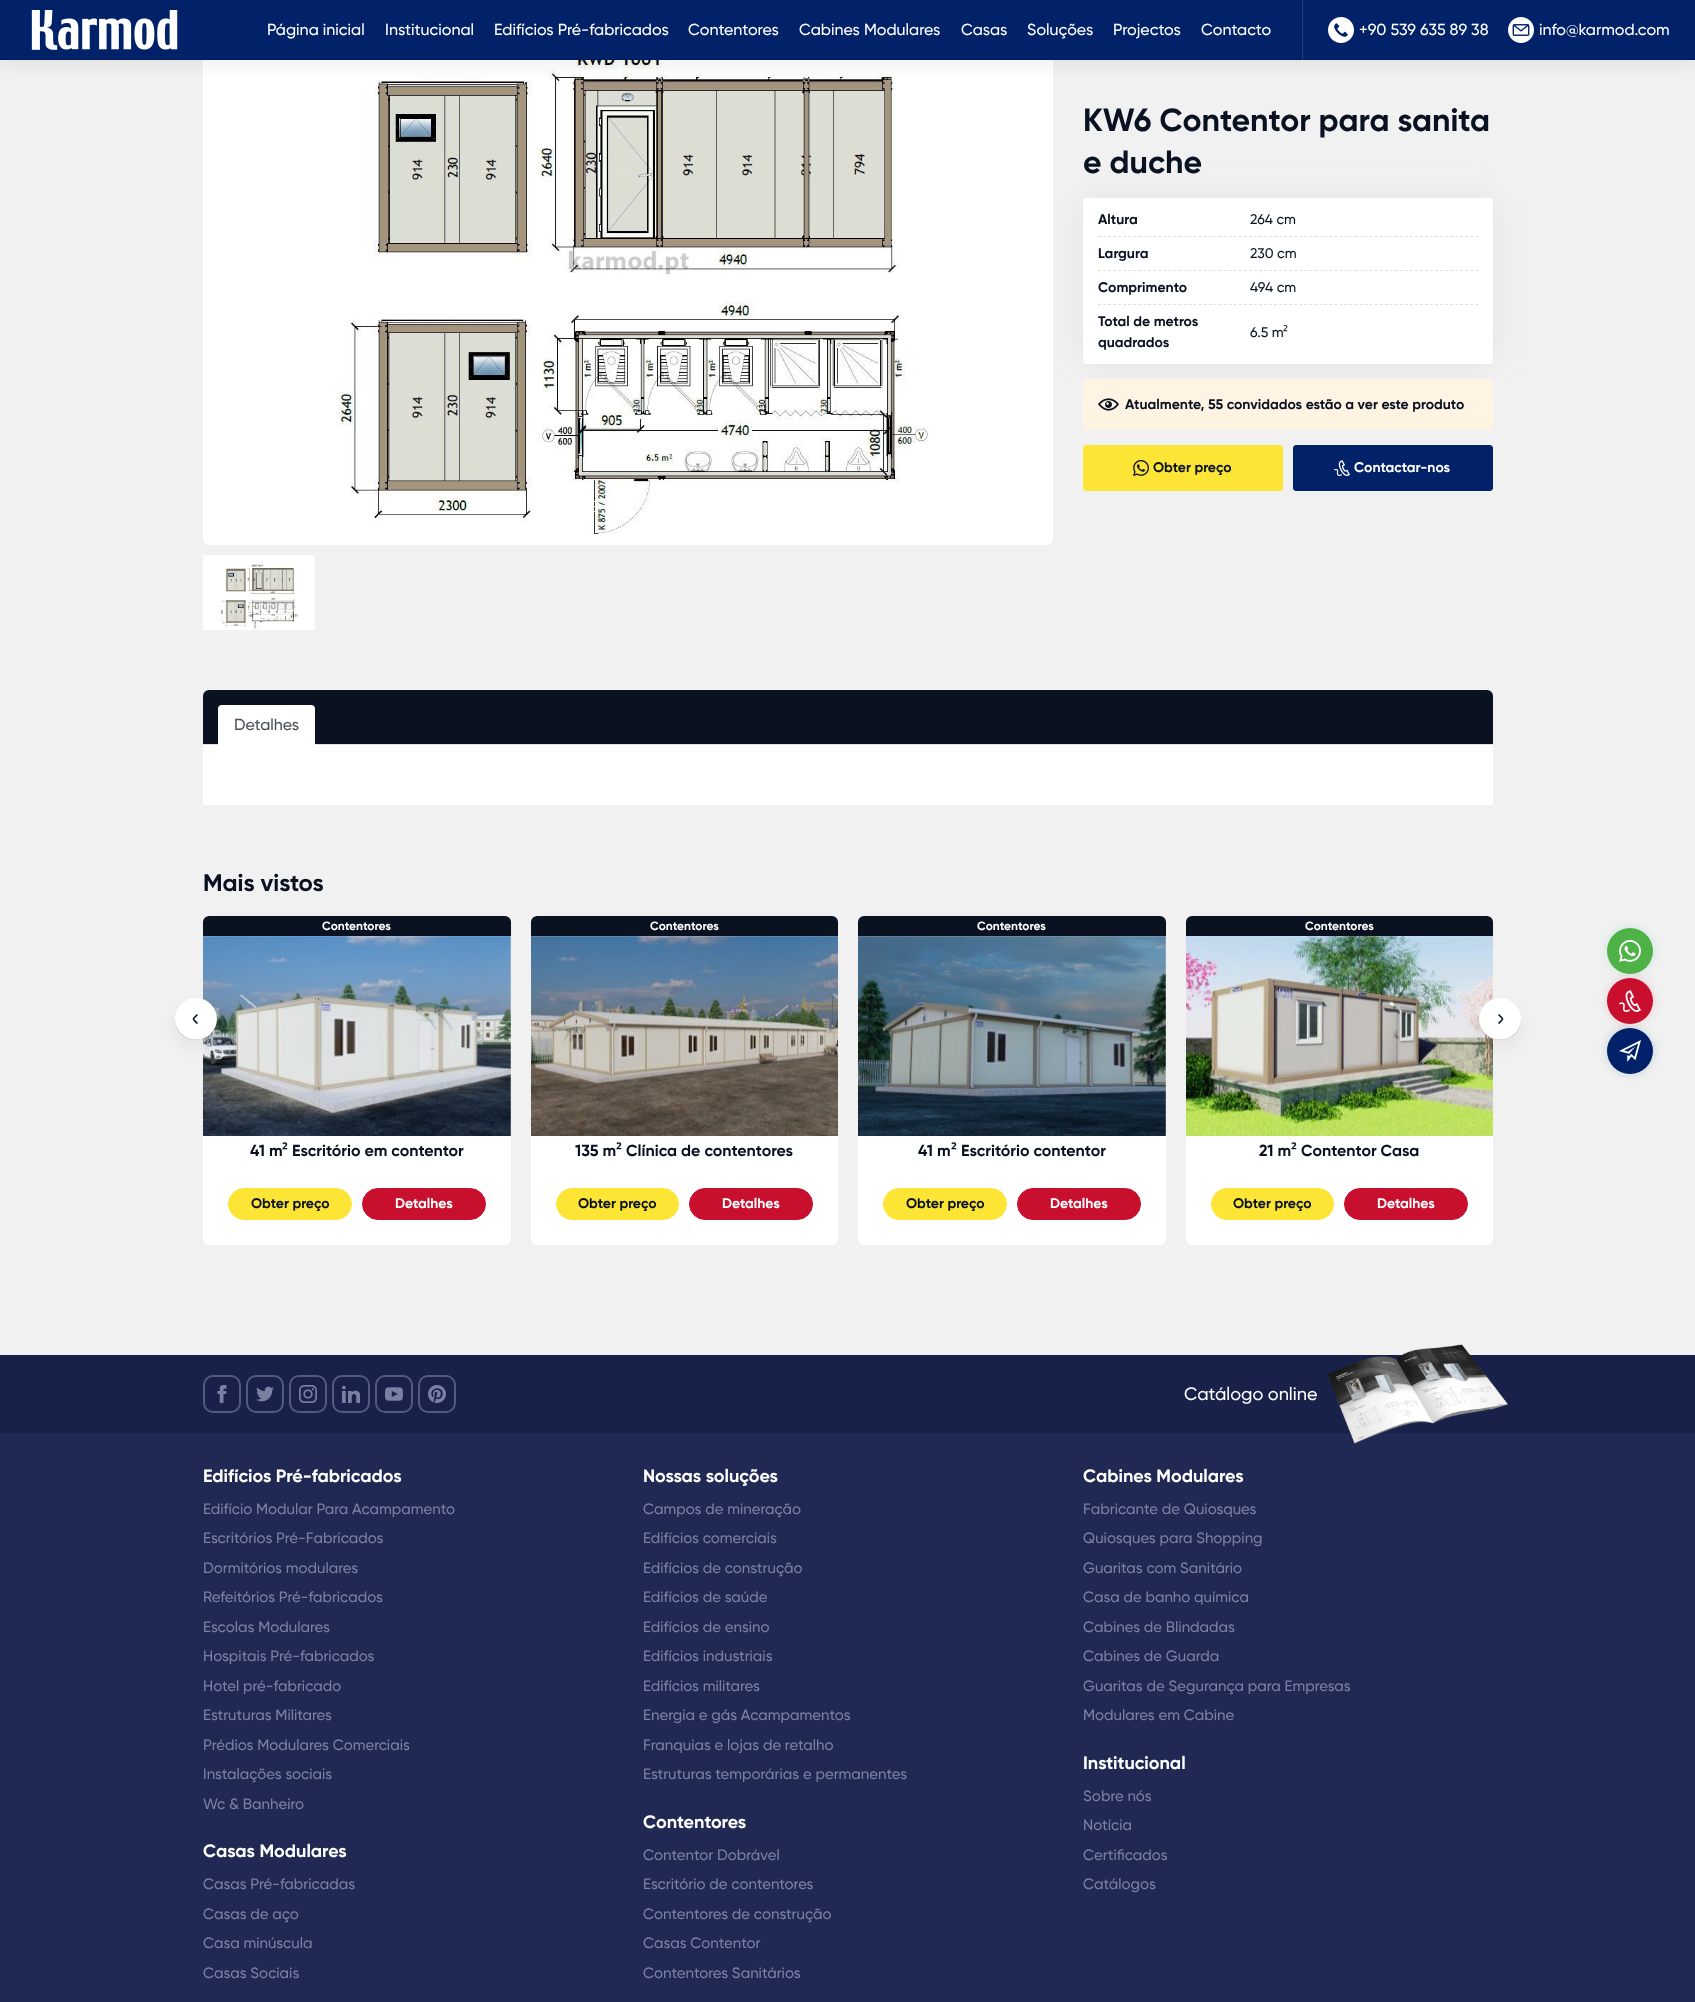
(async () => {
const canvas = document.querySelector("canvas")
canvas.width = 1695
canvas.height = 2002
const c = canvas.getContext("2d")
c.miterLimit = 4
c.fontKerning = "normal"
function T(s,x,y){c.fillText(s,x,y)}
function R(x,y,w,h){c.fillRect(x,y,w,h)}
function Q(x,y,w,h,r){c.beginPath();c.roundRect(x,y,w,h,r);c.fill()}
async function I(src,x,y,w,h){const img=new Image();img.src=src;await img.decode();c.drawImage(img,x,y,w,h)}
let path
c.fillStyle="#f1f1f1"
R(0,0,1695,2002)
await I("4.png",203,60,850,485)
c.fillStyle="#0000000d"
c.filter="blur(8px)"
c.beginPath()
c.rect(0,8,1695,60)
c.fill()
c.filter="none"
c.fillStyle="#012169"
R(0,0,1695,59)
c.fillStyle="#25407e"
R(1302,0,1,60)
c.fillStyle="#011c59"
R(0,59,1695,1)
c.fillStyle="#253c70"
R(1302,59,1,1)
await I("1.png",31,10,147,40)
c.font="500 16px Gilroy"
c.fillStyle="#fff"
T("Página inicial",267,35)
T("Institucional",385,35)
T("Edifícios Pré-fabricados",494,35)
T("Contentores",688,35)
T("Cabines Modulares",799,35)
T("Casas",961,35)
T("Soluções",1027,35)
T("Projectos",1113,35)
T("Contacto",1201,35)
await I("2.png",1328,17,26,26)
T("+90 539 635 89 38",1359,35)
await I("3.png",1508,17,26,26)
T("info@karmod.com",1539,35)
await I("5.png",203,555,112,75)
c.font="bold 32px Gilroy"
c.fillStyle="#0a1222"
T("KW6 Contentor para sanita",1083,131)
c.fillStyle="#9aa1ab26"
c.filter="blur(17.5px)"
c.beginPath()
c.roundRect(1083,198,410,166,4)
c.fill()
c.filter="none"
c.fillStyle="#0a1222"
T("e duche",1083,173)
c.fillStyle="#fff"
Q(1083,198,410,166,4)
path = new Path2D("M1098 236.5h380")
c.strokeStyle="#e0e0e0"
c.setLineDash([3,2.03])
c.stroke(path)
c.font="bold 14px Gilroy"
c.fillStyle="#0a1222"
T("Altura",1098,224)
c.font="500 14px Gilroy"
T("264 cm",1250,224)
path = new Path2D("M1098 270.5h380")
c.stroke(path)
c.font="bold 14px Gilroy"
T("Largura",1098,258)
c.font="500 14px Gilroy"
T("230 cm",1250,258)
path = new Path2D("M1098 304.5h380")
c.stroke(path)
c.font="bold 14px Gilroy"
T("Comprimento",1098,292)
c.font="500 14px Gilroy"
T("494 cm",1250,292)
c.font="bold 14px Gilroy"
T("Total de metros",1098,326)
T("quadrados",1098,347)
c.font="500 14px Gilroy"
T("6.5 m",1250,337)
c.font="14px Noto Sans"
T("²",1283,337)
c.fillStyle="#fff4e4"
Q(1083,379,410,51,2)
await I("6.png",1098,398,21,13)
c.font="bold 14px Gilroy"
c.fillStyle="#0a1222"
T("Atualmente, 55 convidados estão a ver este produto",1125,409)
c.fillStyle="#fce535"
c.beginPath()
c.roundRect(1083.5,445.5,199,45,2.5)
c.fill()
c.strokeStyle="#fce535"
c.setLineDash([])
c.stroke()
await I("7.png",1133,460,16,16)
c.fillStyle="#0a1222"
T("Obter preço",1153,472)
c.fillStyle="#012169"
c.beginPath()
c.roundRect(1293.5,445.5,199,45,2.5)
c.fill()
c.strokeStyle="#012169"
c.stroke()
await I("8.png",1334,460,16,16)
c.fillStyle="#fff"
T("Contactar-nos",1354,472)
c.fillStyle="#0a1222"
c.beginPath()
c.roundRect(203,690,1290,55,[6,6,0,0])
c.fill()
c.fillStyle="#dee2e6"
R(203,744,1290,1)
c.fillStyle="#fff"
c.beginPath()
c.roundRect(218,705,97,40,[4,4,0,0])
c.fill()
c.font="500 16px Gilroy"
c.fillStyle="#495057"
T("Detalhes",234,730)
c.fillStyle="#fff"
R(203,745,1290,60)
c.font="bold 24px Gilroy"
c.fillStyle="#0a1222"
T("Mais vistos",203,891)
c.fillStyle="#fff"
Q(203,916,308,329,6)
c.fillStyle="#0a1222"
c.beginPath()
c.roundRect(203,916,308,20,[6,6,0,0])
c.fill()
c.font="bold 12px Gilroy"
c.fillStyle="#fff"
T("Contentores",322,930)
await I("9.png",203,936,308,200)
c.font="bold 16px Gilroy"
c.fillStyle="#0a1222"
T("41 m",250,1156)
c.font="600 16px Noto Sans"
T("²",282,1156)
c.font="bold 16px Gilroy"
T("Escritório em contentor",292,1156)
c.fillStyle="#fce535"
c.beginPath()
c.roundRect(228.5,1188.5,123,31,15.5)
c.fill()
c.strokeStyle="#fce535"
c.stroke()
c.font="bold 14px Gilroy"
c.fillStyle="#0a1222"
T("Obter preço",251,1208)
c.fillStyle="#c8102e"
c.beginPath()
c.roundRect(362.5,1188.5,123,31,15.5)
c.fill()
c.strokeStyle="#c8102e"
c.stroke()
c.fillStyle="#fff"
T("Detalhes",395,1208)
Q(531,916,307,329,6)
c.fillStyle="#0a1222"
c.beginPath()
c.roundRect(531,916,307,20,[6,6,0,0])
c.fill()
c.font="bold 12px Gilroy"
c.fillStyle="#fff"
T("Contentores",650,930)
await I("10.png",531,936,307,200)
c.font="bold 16px Gilroy"
c.fillStyle="#0a1222"
T("135 m",575,1156)
c.font="600 16px Noto Sans"
T("²",616,1156)
c.font="bold 16px Gilroy"
T("Clínica de contentores",626,1156)
c.fillStyle="#fce535"
c.beginPath()
c.roundRect(556.5,1188.5,122,31,15.5)
c.fill()
c.strokeStyle="#fce535"
c.stroke()
c.font="bold 14px Gilroy"
c.fillStyle="#0a1222"
T("Obter preço",578,1208)
c.fillStyle="#c8102e"
c.beginPath()
c.roundRect(689.5,1188.5,123,31,15.5)
c.fill()
c.strokeStyle="#c8102e"
c.stroke()
c.fillStyle="#fff"
T("Detalhes",722,1208)
Q(858,916,308,329,6)
c.fillStyle="#0a1222"
c.beginPath()
c.roundRect(858,916,308,20,[6,6,0,0])
c.fill()
c.font="bold 12px Gilroy"
c.fillStyle="#fff"
T("Contentores",977,930)
await I("11.png",858,936,308,200)
c.font="bold 16px Gilroy"
c.fillStyle="#0a1222"
T("41 m",918,1156)
c.font="600 16px Noto Sans"
T("²",951,1156)
c.font="bold 16px Gilroy"
T("Escritório contentor",961,1156)
c.fillStyle="#fce535"
c.beginPath()
c.roundRect(883.5,1188.5,123,31,15.5)
c.fill()
c.strokeStyle="#fce535"
c.stroke()
c.font="bold 14px Gilroy"
c.fillStyle="#0a1222"
T("Obter preço",906,1208)
c.fillStyle="#c8102e"
c.beginPath()
c.roundRect(1017.5,1188.5,123,31,15.5)
c.fill()
c.strokeStyle="#c8102e"
c.stroke()
c.fillStyle="#fff"
T("Detalhes",1050,1208)
Q(1186,916,307,329,6)
c.fillStyle="#0a1222"
c.beginPath()
c.roundRect(1186,916,307,20,[6,6,0,0])
c.fill()
c.font="bold 12px Gilroy"
c.fillStyle="#fff"
T("Contentores",1305,930)
await I("12.png",1186,936,307,200)
c.font="bold 16px Gilroy"
c.fillStyle="#0a1222"
T("21 m",1259,1156)
c.font="600 16px Noto Sans"
T("²",1291,1156)
c.font="bold 16px Gilroy"
T("Contentor Casa",1301,1156)
c.fillStyle="#fce535"
c.beginPath()
c.roundRect(1211.5,1188.5,122,31,15.5)
c.fill()
c.strokeStyle="#fce535"
c.stroke()
c.font="bold 14px Gilroy"
c.fillStyle="#0a1222"
T("Obter preço",1233,1208)
c.fillStyle="#c8102e"
c.beginPath()
c.roundRect(1344.5,1188.5,123,31,15.5)
c.fill()
c.strokeStyle="#c8102e"
c.stroke()
c.fillStyle="#fff"
T("Detalhes",1377,1208)
c.fillStyle="#0000000d"
c.filter="blur(8px)"
c.beginPath()
c.roundRect(175,1006,42,42,21)
c.fill()
c.filter="none"
c.fillStyle="#fff"
c.beginPath()
c.arc(196,1019,21,0,7)
c.fill()
c.fillStyle="#00000026"
path = new Path2D("M217 1019c-1 27-41 27-42 0c-1 28 43 28 42 0z")
c.fill(path)
path = new Path2D("M197.5 1023.5c-5.5-5.5-5.5-3.5 0-9")
c.strokeStyle="#0a1222"
c.lineWidth=1.5
c.stroke(path)
c.fillStyle="#0000000d"
c.filter="blur(8px)"
c.beginPath()
c.roundRect(1479,1006,42,42,21)
c.fill()
c.filter="none"
c.fillStyle="#fff"
c.beginPath()
c.arc(1500,1019,21,0,7)
c.fill()
c.fillStyle="#00000026"
path = new Path2D("M1521 1019c-1 27-41 27-42 0c-1 28 43 28 42 0z")
c.fill(path)
path = new Path2D("M1498.5 1014.5c5.5 5.5 5.5 3.5 0 9")
c.stroke(path)
c.fillStyle="#17bd9033"
c.filter="blur(5px)"
c.beginPath()
c.roundRect(1607,928,46,46,23)
c.fill()
c.filter="none"
c.fillStyle="#4eb246"
c.beginPath()
c.arc(1630,951,23,0,7)
c.fill()
await I("13.png",1619,940,22,22)
c.fillStyle="#f4355033"
c.filter="blur(5px)"
c.beginPath()
c.roundRect(1607,978,46,46,23)
c.fill()
c.filter="none"
c.fillStyle="#c8102e"
c.beginPath()
c.arc(1630,1001,23,0,7)
c.fill()
await I("14.png",1619,990,22,22)
c.fillStyle="#005a9333"
c.filter="blur(5px)"
c.beginPath()
c.roundRect(1607,1028,46,46,23)
c.fill()
c.filter="none"
c.fillStyle="#012169"
c.beginPath()
c.arc(1630,1051,23,0,7)
c.fill()
await I("15.png",1619,1040,22,22)
c.fillStyle="#202954"
R(0,1433,1695,569)
c.fillStyle="#17214a"
R(0,1355,1695,78)
c.beginPath()
c.roundRect(204,1376,36,36,9)
c.strokeStyle="#525b7f"
c.lineWidth=2
c.stroke()
await I("16.png",217,1385,10,18)
c.beginPath()
c.roundRect(247,1376,36,36,9)
c.stroke()
await I("17.png",256,1386,18,16)
c.beginPath()
c.roundRect(290,1376,36,36,9)
c.stroke()
await I("18.png",299,1385,18,18)
c.beginPath()
c.roundRect(333,1376,36,36,9)
c.stroke()
await I("19.png",342,1385,18,18)
c.beginPath()
c.roundRect(376,1376,36,36,9)
c.stroke()
await I("20.png",385,1387,18,14)
c.beginPath()
c.roundRect(419,1376,36,36,9)
c.stroke()
await I("21.png",428,1385,18,18)
c.font="500 18px Gilroy"
c.fillStyle="#fff"
T("Catálogo online",1184,1400)
await I("22.png",1327,1344,181,100)
c.font="bold 18px Gilroy"
T("Edifícios Pré-fabricados",203,1482)
c.font="500 15px Gilroy"
c.fillStyle="#7981a3"
T("Edifício Modular Para Acampamento",203,1514)
T("Escritórios Pré-Fabricados",203,1543)
T("Dormitórios modulares",203,1573)
T("Refeitórios Pré-fabricados",203,1602)
T("Escolas Modulares",203,1632)
T("Hospitais Pré-fabricados",203,1661)
T("Hotel pré-fabricado",203,1691)
T("Estruturas Militares",203,1720)
T("Prédios Modulares Comerciais",203,1750)
T("Instalações sociais",203,1779)
T("Wc & Banheiro",203,1809)
c.font="bold 18px Gilroy"
c.fillStyle="#fff"
T("Casas Modulares",203,1857)
c.font="500 15px Gilroy"
c.fillStyle="#7981a3"
T("Casas Pré-fabricadas",203,1889)
T("Casas de aço",203,1919)
T("Casa minúscula",203,1948)
T("Casas Sociais",203,1978)
c.font="bold 18px Gilroy"
c.fillStyle="#fff"
T("Nossas soluções",643,1482)
c.font="500 15px Gilroy"
c.fillStyle="#7981a3"
T("Campos de mineração",643,1514)
T("Edifícios comerciais",643,1543)
T("Edifícios de construção",643,1573)
T("Edifícios de saúde",643,1602)
T("Edifícios de ensino",643,1632)
T("Edifícios industriais",643,1661)
T("Edifícios militares",643,1691)
T("Energia e gás Acampamentos",643,1720)
T("Franquias e lojas de retalho",643,1750)
T("Estruturas temporárias e permanentes",643,1779)
c.font="bold 18px Gilroy"
c.fillStyle="#fff"
T("Contentores",643,1828)
c.font="500 15px Gilroy"
c.fillStyle="#7981a3"
T("Contentor Dobrável",643,1860)
T("Escritório de contentores",643,1889)
T("Contentores de construção",643,1919)
T("Casas Contentor",643,1948)
T("Contentores Sanitários",643,1978)
c.font="bold 18px Gilroy"
c.fillStyle="#fff"
T("Cabines Modulares",1083,1482)
c.font="500 15px Gilroy"
c.fillStyle="#7981a3"
T("Fabricante de Quiosques",1083,1514)
T("Quiosques para Shopping",1083,1543)
T("Guaritas com Sanitário",1083,1573)
T("Casa de banho química",1083,1602)
T("Cabines de Blindadas",1083,1632)
T("Cabines de Guarda",1083,1661)
T("Guaritas de Segurança para Empresas",1083,1691)
T("Modulares em Cabine",1083,1720)
c.font="bold 18px Gilroy"
c.fillStyle="#fff"
T("Institucional",1083,1769)
c.font="500 15px Gilroy"
c.fillStyle="#7981a3"
T("Sobre nós",1083,1801)
T("Notícia",1083,1830)
T("Certificados",1083,1860)
T("Catálogos",1083,1889)
})()
